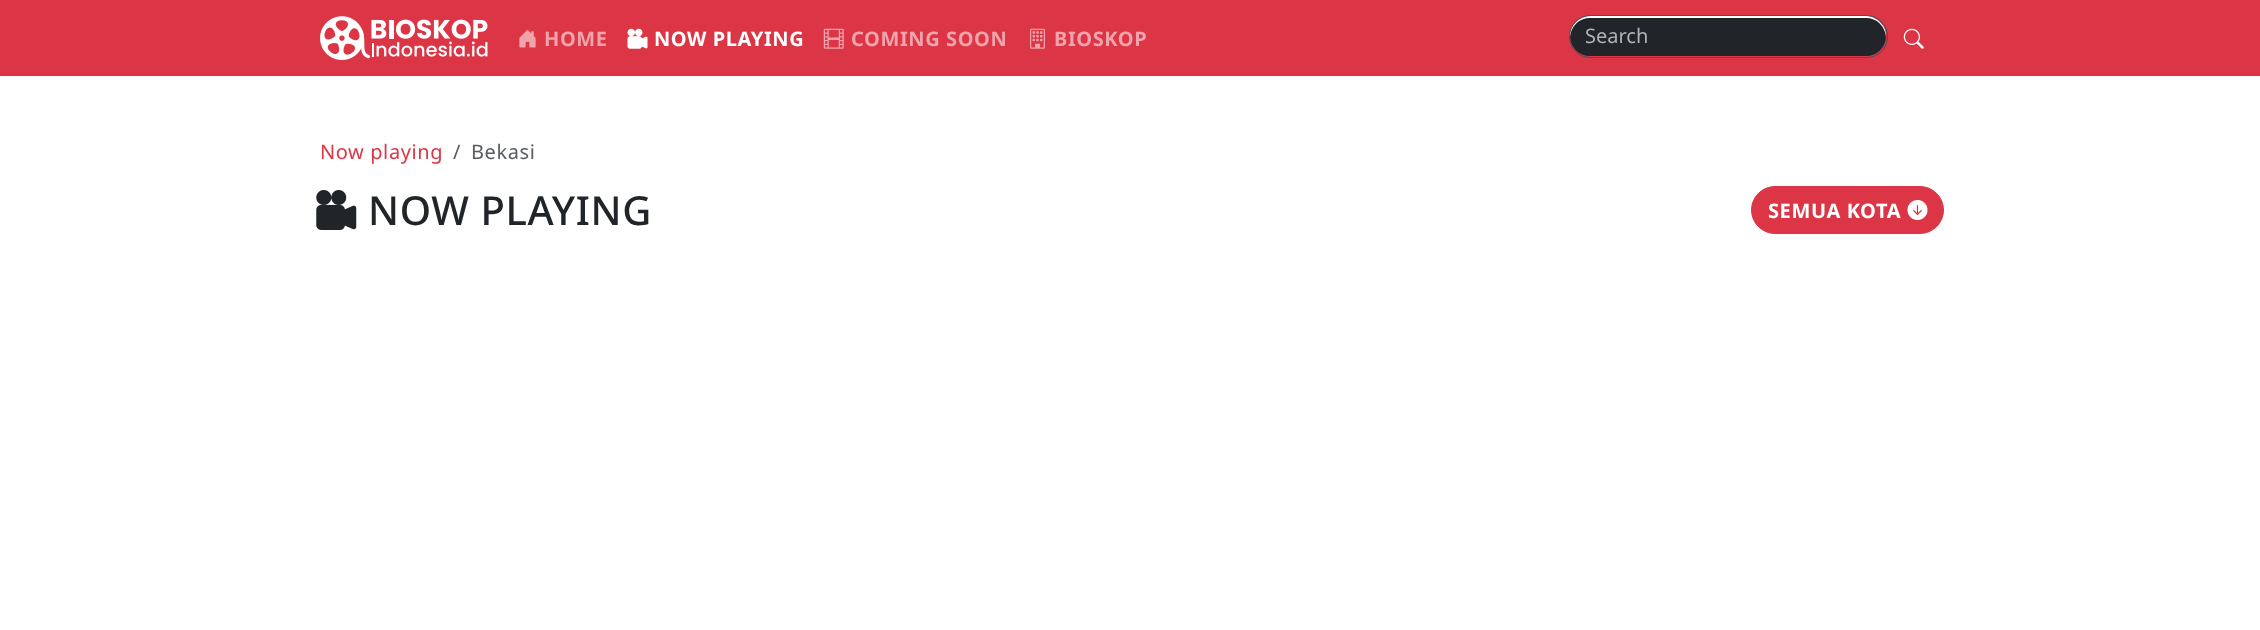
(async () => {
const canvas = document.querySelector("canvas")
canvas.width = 2260
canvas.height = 630
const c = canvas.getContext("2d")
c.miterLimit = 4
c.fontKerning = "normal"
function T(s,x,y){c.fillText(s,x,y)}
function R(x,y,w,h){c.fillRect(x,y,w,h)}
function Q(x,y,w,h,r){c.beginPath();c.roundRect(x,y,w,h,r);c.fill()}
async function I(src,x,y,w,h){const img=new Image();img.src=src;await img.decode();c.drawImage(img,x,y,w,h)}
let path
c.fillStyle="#fff"
R(0,0,2260,630)
c.fillStyle="#dc3545"
R(0,0,2260,76)
await I("1.png",320,16,168,44)
await I("2.png",519,30,17,18)
c.letterSpacing="0.6px"
c.font="bold 20px Noto Sans"
c.fillStyle="#efa4ab"
T("HOME",544,46)
await I("3.png",627,28,21,21)
c.fillStyle="#fff"
T("NOW PLAYING",654,46)
await I("4.png",823,28,21,21)
c.fillStyle="#efa4ab"
T("COMING SOON",851,46)
await I("5.png",1030,28,15,21)
T("BIOSKOP",1054,46)
c.fillStyle="#212529"
Q(1570,16,316,40,20)
c.fillStyle="#fff"
path = new Path2D("M1590 18h276c11 0 19 8 20 19c1-11-9-21-20-21h-276c-11 0-21 10-20 21c1-11 9-19 20-19z")
c.fill(path)
c.beginPath()
c.roundRect(1569.5,15.5,318,42,21)
c.strokeStyle="#495057"
c.stroke()
c.letterSpacing="0px"
c.font="20px Noto Sans"
c.fillStyle="#afb3b7"
T("Search",1585,43)
await I("6.png",1903,28,21,21)
c.letterSpacing="0.6px"
c.fillStyle="#dc3545"
T("Now playing",320,159)
c.fillStyle="#595c5f"
T("/",453,159)
T("Bekasi",471,159)
await I("7.png",316,190,41,40)
c.font="500 40px Noto Sans"
c.fillStyle="#212529"
T("NOW PLAYING",368,225)
c.fillStyle="#dc3545"
c.beginPath()
c.roundRect(1751.5,186.5,192,47,23.5)
c.fill()
c.strokeStyle="#dc3545"
c.stroke()
c.font="bold 20px Noto Sans"
c.fillStyle="#fff"
T("SEMUA KOTA",1768,218)
await I("8.png",1907,200,21,20)
})()
